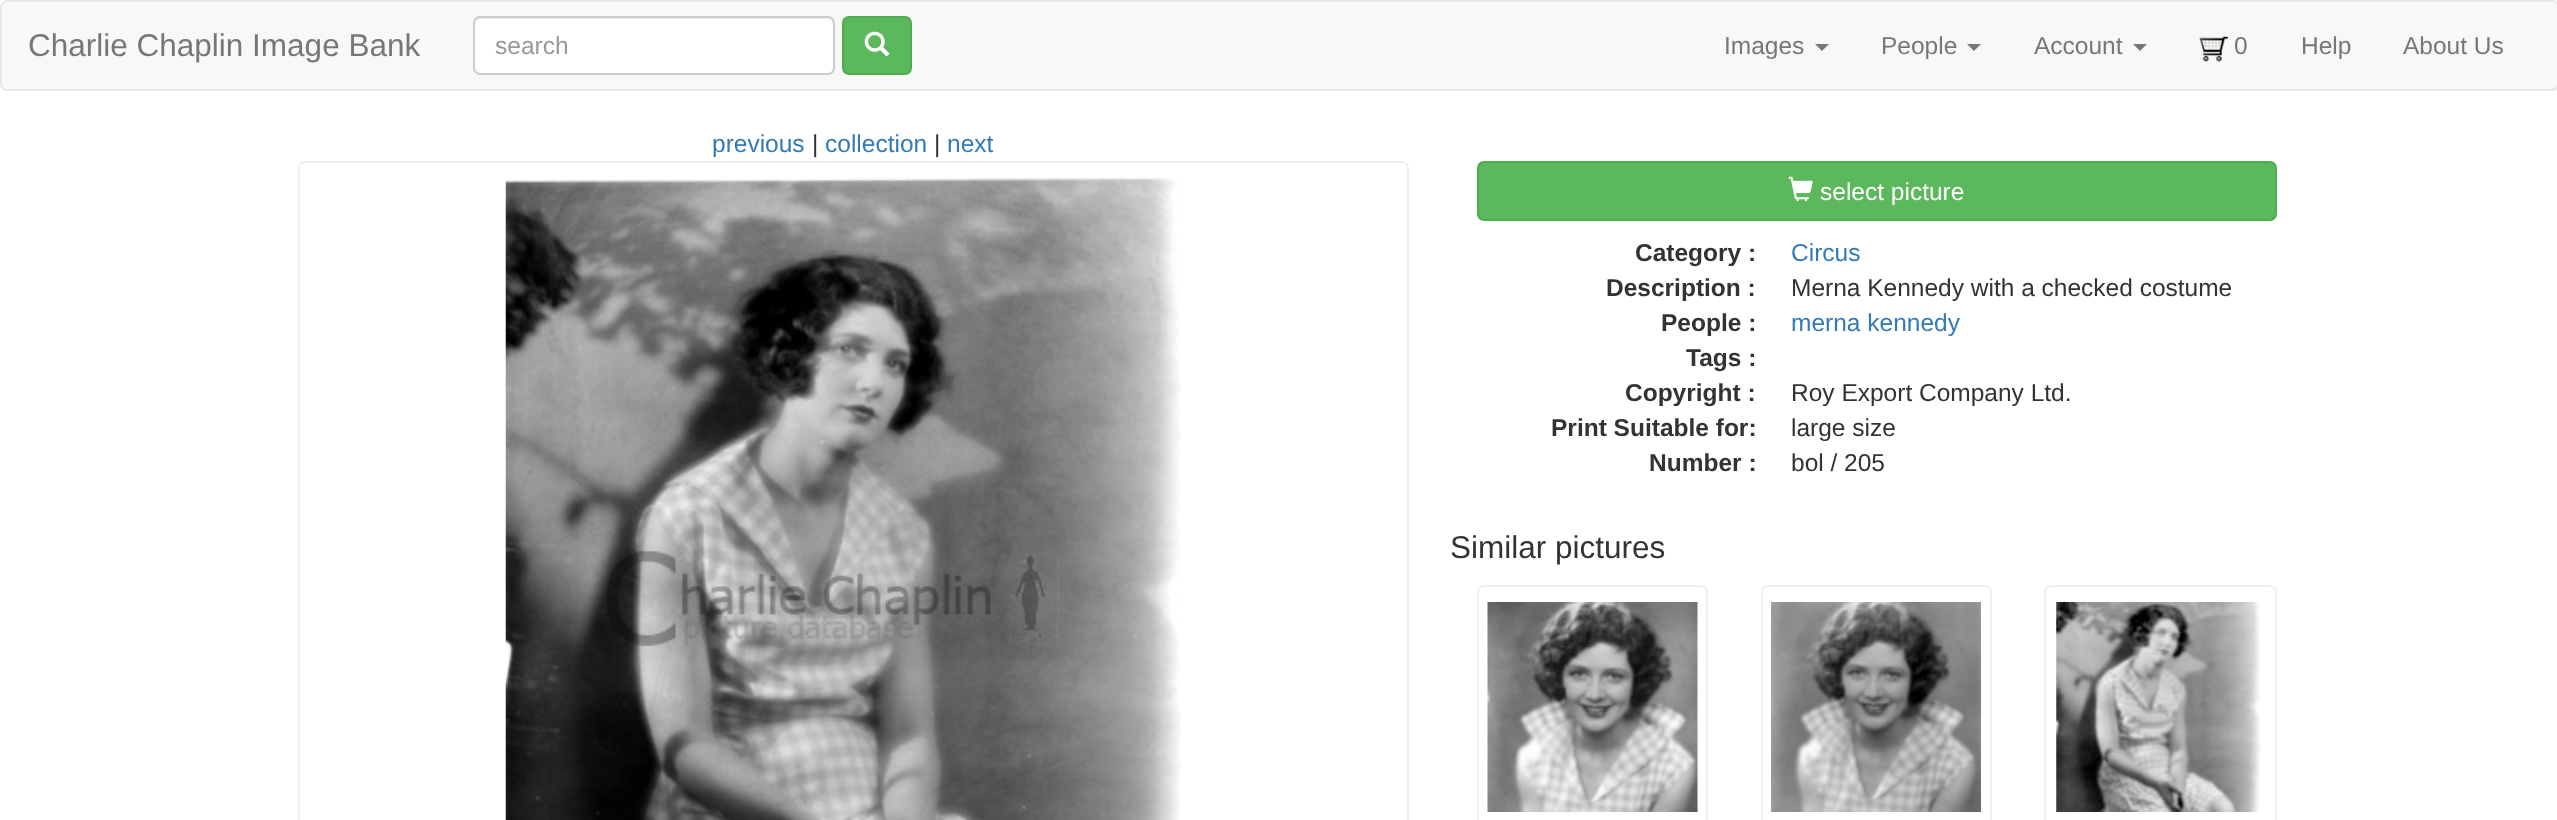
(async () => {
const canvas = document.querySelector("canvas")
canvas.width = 2557
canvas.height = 820
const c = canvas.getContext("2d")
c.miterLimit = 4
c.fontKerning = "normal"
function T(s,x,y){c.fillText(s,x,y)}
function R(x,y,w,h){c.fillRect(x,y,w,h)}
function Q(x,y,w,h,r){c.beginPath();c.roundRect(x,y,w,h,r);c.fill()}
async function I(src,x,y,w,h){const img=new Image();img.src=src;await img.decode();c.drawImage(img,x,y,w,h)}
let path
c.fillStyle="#fff"
R(0,0,2557,820)
c.fillStyle="#f8f8f8"
c.beginPath()
c.roundRect(1,1,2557,89,6)
c.fill()
c.strokeStyle="#e7e7e7"
c.lineWidth=2
c.stroke()
c.font="31.5px Liberation Sans"
c.fillStyle="#777"
T("Charlie Chaplin Image Bank",28,56)
c.fillStyle="#fff"
Q(473,16,362,59,7)
c.fillStyle="#ececec"
path = new Path2D("M480 19h348c3 0 5 3 5 5v-1c0-3-2-5-5-5h-349c-3 0-5 2-5 5v1c0-2 3-5 6-5z")
c.fill(path)
c.beginPath()
c.roundRect(474,17,360,57,6)
c.strokeStyle="#ccc"
c.stroke()
c.font="24.5px Liberation Sans"
c.fillStyle="#999"
T("search",495,54)
c.fillStyle="#5cb85c"
c.beginPath()
c.roundRect(843,17,68,57,6)
c.fill()
c.strokeStyle="#4cae4c"
c.stroke()
await I("1.png",864,31,26,26)
c.fillStyle="#777"
T("Images",1724,54)
path = new Path2D("M1815 44h14l-7 7z")
c.fill(path)
T("People",1881,54)
path = new Path2D("M1967 44h14l-7 7z")
c.fill(path)
T("Account",2034,54)
path = new Path2D("M2133 44h14l-7 7z")
c.fill(path)
await I("2.png",2199,36,29,26)
T("0",2234,54)
T("Help",2301,54)
T("About Us",2403,54)
c.fillStyle="#337ab7"
T("previous",712,152)
c.fillStyle="#333"
T("|",812,152)
c.fillStyle="#337ab7"
T("collection",825,152)
c.fillStyle="#333"
T("|",934,152)
c.fillStyle="#337ab7"
T("next",947,152)
path = new Path2D("M305 162h1097c3.5 0 6 2.5 6 6v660h-1109v-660c0-3.5 2.5-6 6-6z")
c.strokeStyle="#efefef"
c.stroke(path)
await I("3.png",505,178,676,642)
c.fillStyle="#5cb85c"
c.beginPath()
c.roundRect(1478,162,798,58,6)
c.fill()
c.strokeStyle="#4cae4c"
c.stroke()
await I("4.png",1788,176,25,26)
c.fillStyle="#fff"
T("select picture",1820,200)
c.font="bold 24.5px Liberation Sans"
c.fillStyle="#333"
T("Category :",1635,261)
c.font="24.5px Liberation Sans"
c.fillStyle="#337ab7"
T("Circus",1791,261)
c.font="bold 24.5px Liberation Sans"
c.fillStyle="#333"
T("Description :",1606,296)
c.font="24.5px Liberation Sans"
T("Merna Kennedy with a checked costume",1791,296)
c.font="bold 24.5px Liberation Sans"
T("People :",1661,331)
c.font="24.5px Liberation Sans"
c.fillStyle="#337ab7"
T("merna kennedy",1791,331)
c.font="bold 24.5px Liberation Sans"
c.fillStyle="#333"
T("Tags :",1686,366)
T("Copyright :",1625,401)
c.font="24.5px Liberation Sans"
T("Roy Export Company Ltd.",1791,401)
c.font="bold 24.5px Liberation Sans"
T("Print Suitable for:",1551,436)
c.font="24.5px Liberation Sans"
T("large size",1791,436)
c.font="bold 24.5px Liberation Sans"
T("Number :",1649,471)
c.font="24.5px Liberation Sans"
T("bol / 205",1791,471)
c.font="31.5px Liberation Sans"
T("Similar pictures",1450,558)
path = new Path2D("M1484 586h217c3.5 0 6 2.5 6 6v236h-229v-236c0-3.5 2.5-6 6-6z")
c.strokeStyle="#efefef"
c.stroke(path)
await I("5.png",1487,602,211,210)
path = new Path2D("M1768 586h217c3.5 0 6 2.5 6 6v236h-229v-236c0-3.5 2.5-6 6-6z")
c.stroke(path)
await I("6.png",1771,602,210,210)
path = new Path2D("M2051 586h219c3.5 0 6 2.5 6 6v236h-231v-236c0-3.5 2.5-6 6-6z")
c.stroke(path)
await I("7.png",2056,602,205,210)
})()
